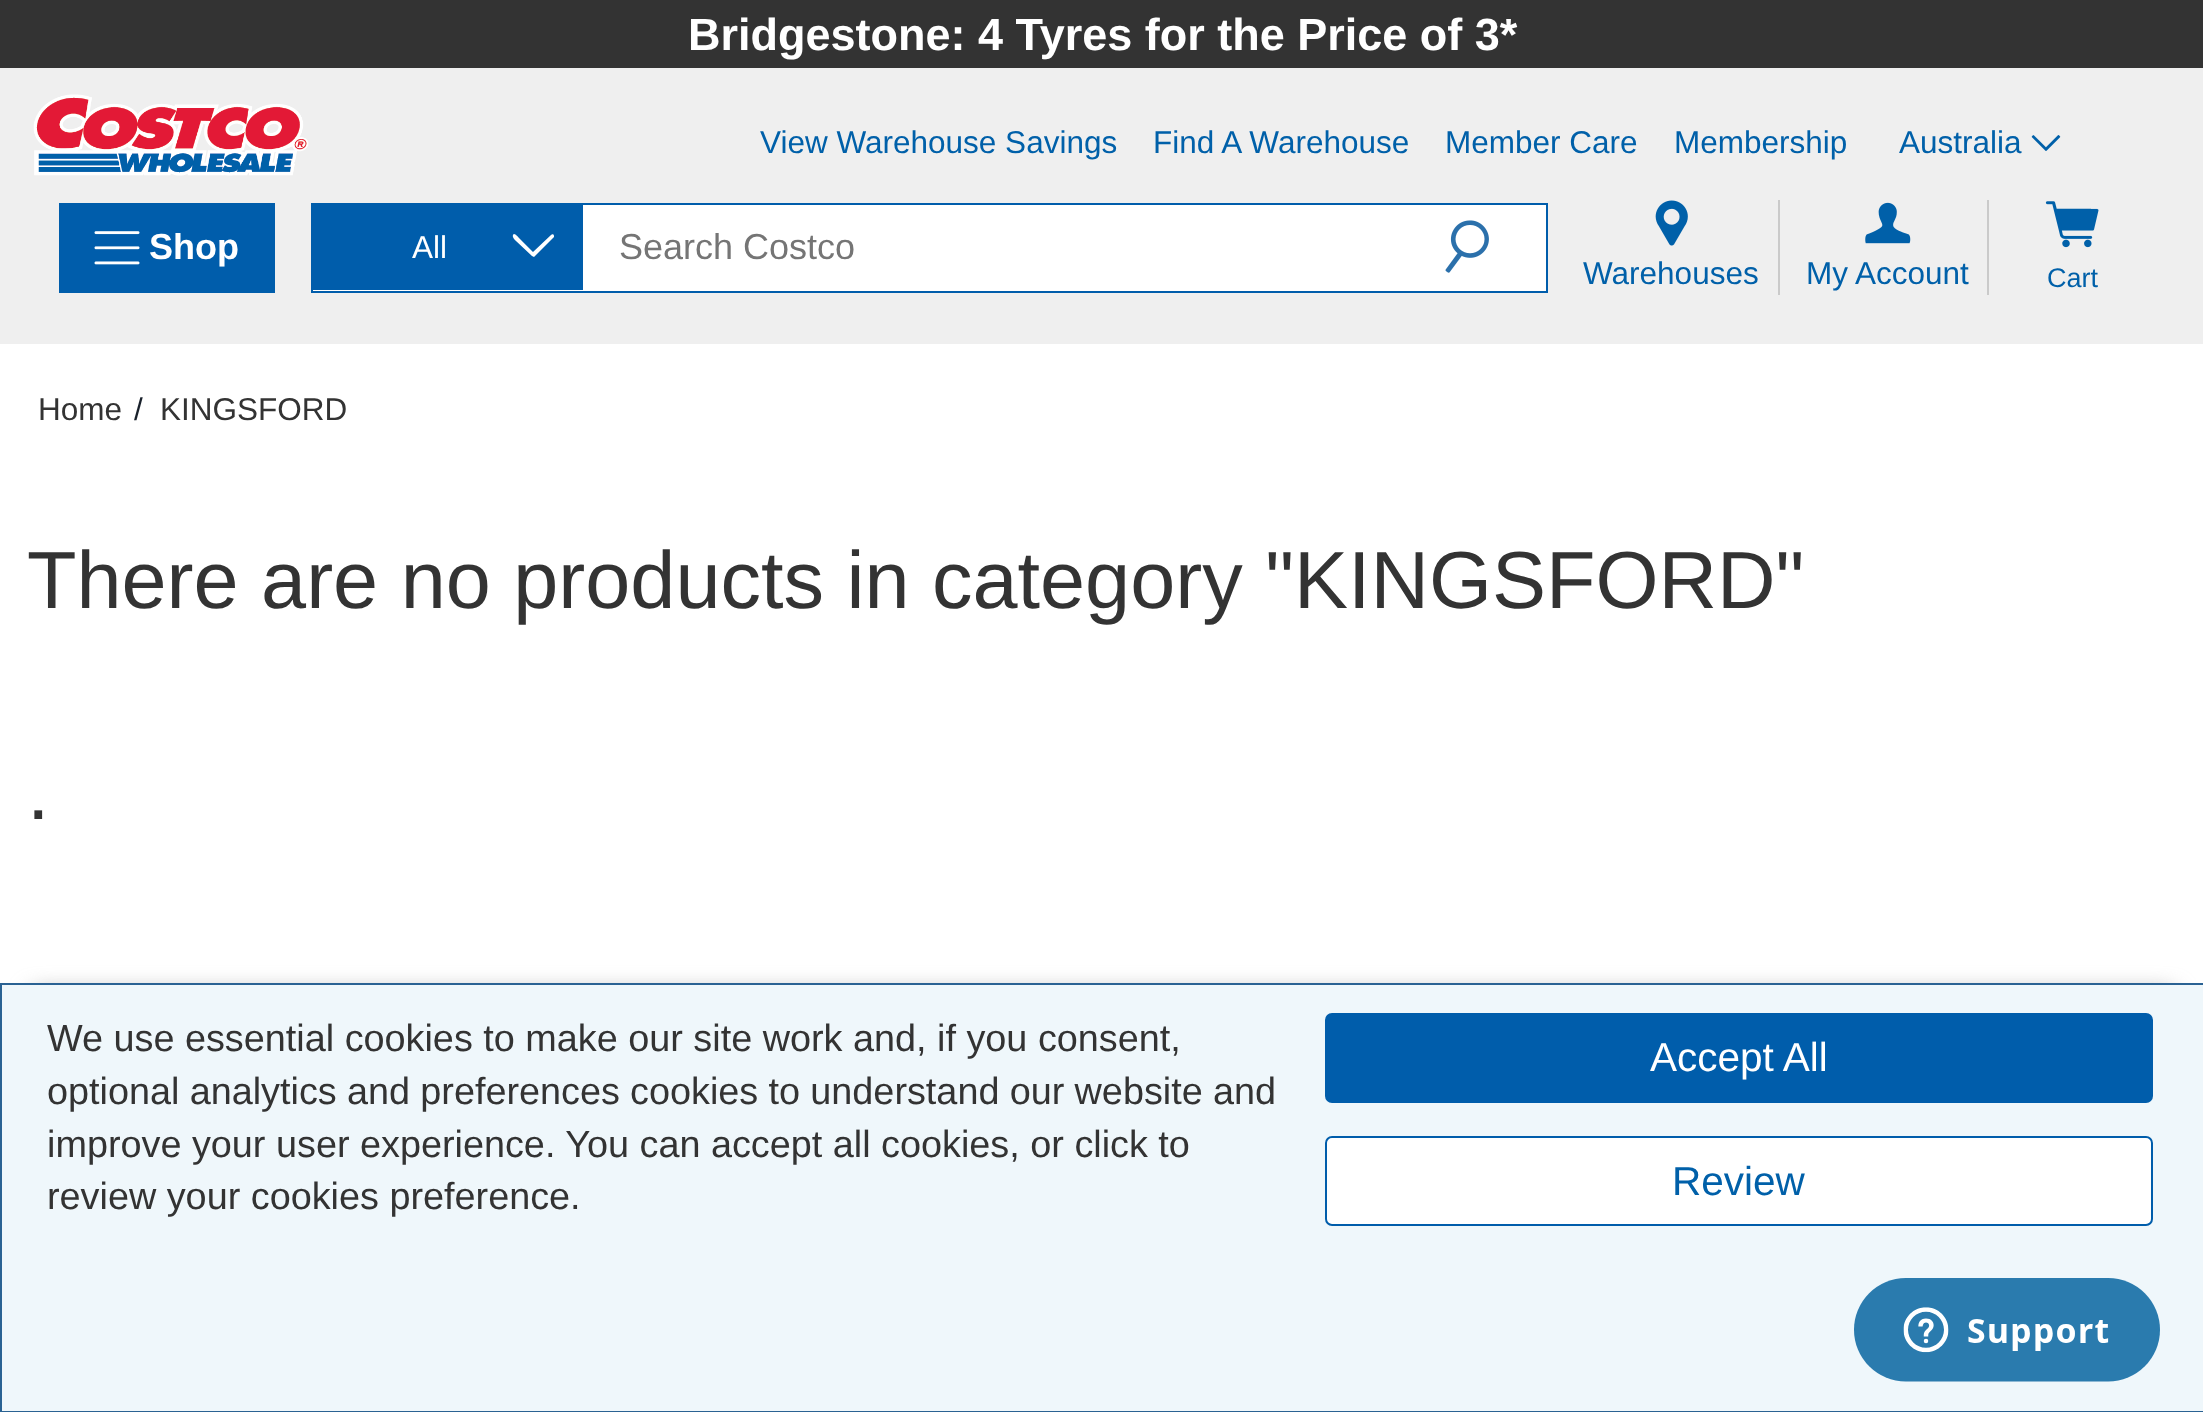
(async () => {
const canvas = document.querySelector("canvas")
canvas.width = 2203
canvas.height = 1412
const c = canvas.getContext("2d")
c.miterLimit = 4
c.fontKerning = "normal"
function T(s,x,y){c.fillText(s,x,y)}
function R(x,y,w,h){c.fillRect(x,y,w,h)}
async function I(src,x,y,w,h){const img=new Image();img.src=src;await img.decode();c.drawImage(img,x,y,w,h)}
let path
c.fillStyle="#fff"
R(0,0,2203,1412)
c.fillStyle="#333"
R(0,0,2203,68)
c.font="bold 45px Liberation Sans"
c.fillStyle="#fff"
T("Bridgestone: 4 Tyres for the Price of 3*",688,50)
c.fillStyle="#efefef"
R(0,68,2203,276)
await I("1.png",33,94,276,82)
c.font="31.5px Liberation Sans"
c.fillStyle="#0060a9"
T("View Warehouse Savings",760,153)
T("Find A Warehouse",1153,153)
T("Member Care",1445,153)
T("Membership",1674,153)
T("Australia",1899,153)
await I("2.png",2031,135,30,16)
c.fillStyle="#005dab"
R(59,203,216,90)
await I("3.png",94,231,46,34)
c.font="bold 36px Liberation Sans"
c.fillStyle="#fff"
T("Shop",149,259)
c.beginPath()
c.rect(312,204,1235,88)
c.fill()
c.strokeStyle="#005dab"
c.lineWidth=2
c.stroke()
c.fillStyle="#005dab"
R(313,205,270,85)
c.font="31.5px Liberation Sans"
c.fillStyle="#fff"
T("All",412,258)
path = new Path2D("M551 235c1-1 3-1 3 1v1l-20 20l-2-1l-16-15c-1-1-4-4-3-6c1-3 5 2 6 3l14 14z")
c.fill(path)
c.font="36px Liberation Sans"
c.fillStyle="#757575"
T("Search Costco",619,259)
await I("4.png",1445,220,44,53)
c.fillStyle="#cacaca"
R(1778,200,2,95)
await I("5.png",1655,200,33,46)
c.font="31.5px Liberation Sans"
c.fillStyle="#0060a9"
T("Warehouses",1583,284)
c.fillStyle="#cacaca"
R(1987,200,2,95)
await I("6.png",1865,202,46,42)
c.fillStyle="#0060a9"
T("My Account",1806,284)
await I("7.png",2045,201,54,47)
c.font="27px Liberation Sans"
T("Cart",2047,287)
c.fillStyle="#9c9c9c"
c.filter="blur(11px)"
c.beginPath()
c.rect(32,992,2142,367)
c.fill()
c.filter="none"
c.fillStyle="#eff7fb"
c.beginPath()
c.rect(1,984,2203,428)
c.fill()
c.strokeStyle="#2a6293"
c.stroke()
c.font="37.8px Liberation Sans"
c.fillStyle="#333"
T("We use essential cookies to make our site work and, if you consent,",47,1051)
c.wordSpacing="-0.25px"
T("optional analytics and preferences cookies to understand our website and",47,1104)
c.wordSpacing="0px"
T("improve your user experience. You can accept all cookies, or click to",47,1157)
T("review your cookies preference.",47,1209)
c.fillStyle="#005dab"
c.beginPath()
c.roundRect(1326,1014,826,88,6)
c.fill()
c.strokeStyle="#005dab"
c.stroke()
c.font="40.5px Liberation Sans"
c.fillStyle="#fff"
T("Accept All",1650,1071)
c.beginPath()
c.roundRect(1326,1137,826,88,6)
c.fill()
c.stroke()
c.fillStyle="#0060a9"
T("Review",1672,1195)
c.font="31.5px Liberation Sans"
c.fillStyle="#333"
T("Home",38,420)
c.fillStyle="#19212b"
T("/",134,420)
c.fillStyle="#333"
T("KINGSFORD",160,420)
c.font="81px Liberation Sans"
T("There are no products in category \"KINGSFORD\"",27,608)
T(".",27,819)
await I("8.png",1854,1278,306,104)
})()
